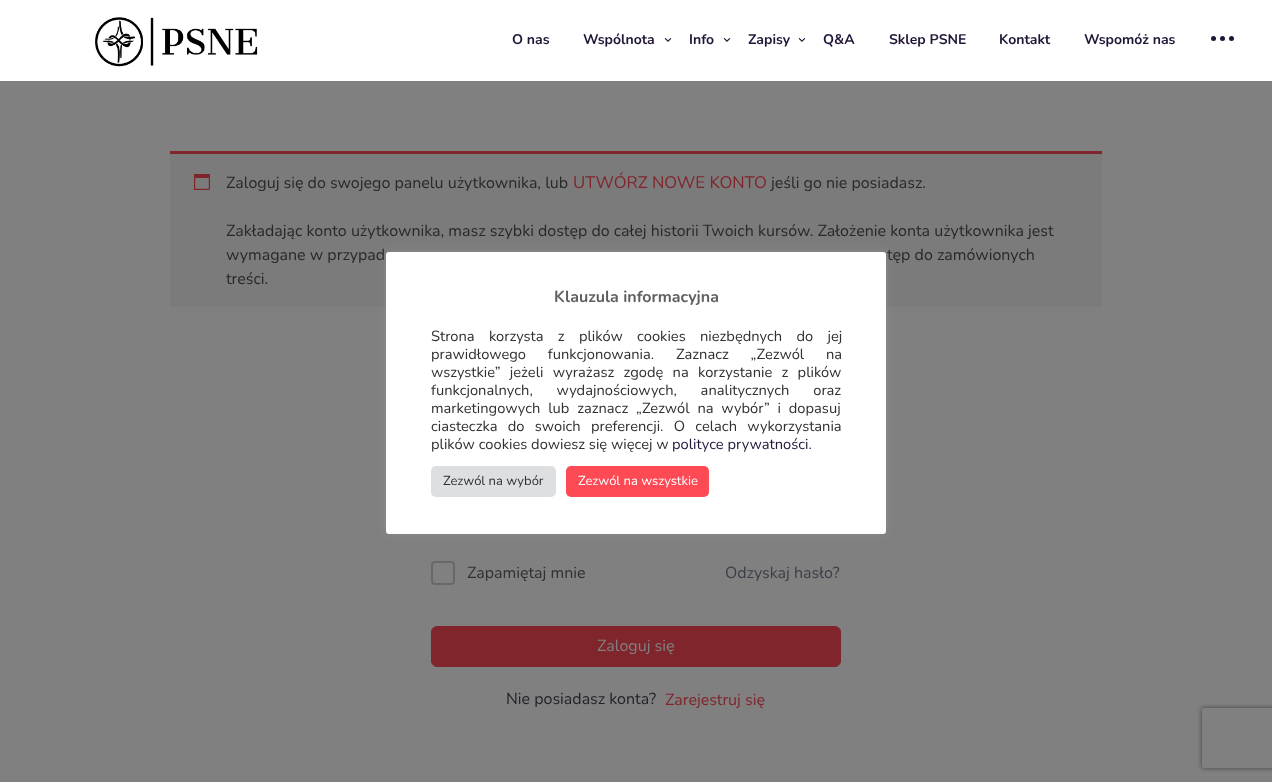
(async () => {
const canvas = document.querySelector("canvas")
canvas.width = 1272
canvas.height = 782
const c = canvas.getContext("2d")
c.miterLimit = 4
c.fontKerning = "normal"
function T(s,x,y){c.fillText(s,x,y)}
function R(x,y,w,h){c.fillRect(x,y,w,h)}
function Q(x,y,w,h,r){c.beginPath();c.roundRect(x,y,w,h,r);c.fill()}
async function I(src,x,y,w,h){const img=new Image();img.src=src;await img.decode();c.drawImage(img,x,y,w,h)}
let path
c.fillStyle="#808080"
R(0,0,1272,782)
c.fillStyle="#fff"
R(0,0,1272,81)
await I("1.png",95,17,163,50)
c.font="bold 14px Nunito"
c.fillStyle="#221638"
T("O nas",512,44)
T("Wspólnota",583,44)
await I("2.png",664,38,8,4)
T("Info",689,44)
await I("2.png",723,38,8,4)
T("Zapisy",748,44)
await I("2.png",798,38,8,4)
T("Q&A",823,44)
T("Sklep PSNE",889,44)
T("Kontakt",999,44)
T("Wspomóż nas",1084,44)
c.beginPath()
c.arc(1213.5,38.5,2.5,0,7)
c.fill()
c.beginPath()
c.arc(1222.5,38.5,2.5,0,7)
c.fill()
c.beginPath()
c.arc(1231.5,38.5,2.5,0,7)
c.fill()
c.fillStyle="#7c7b7c"
R(170,154,932,153)
c.fillStyle="#7f252b"
R(170,151,932,3)
await I("3.png",194,174,16,16)
c.font="200 16px Nunito"
c.fillStyle="#292929"
T("Zaloguj się do swojego panelu użytkownika, lub",226,188)
c.font="200 16.75px Nunito"
c.fillStyle="#7f252b"
T("UTWÓRZ NOWE KONTO",573,188)
c.font="200 16px Nunito"
c.fillStyle="#292929"
T("jeśli go nie posiadasz.",771,188)
T("Zakładając konto użytkownika, masz szybki dostęp do całej historii Twoich kursów. Założenie konta użytkownika jest",226,236)
T("wymagane w przypad",226,260)
T("tęp do zamówionych",887,260)
T("treści.",226,284)
c.beginPath()
c.roundRect(432,562,22,22,3)
c.strokeStyle="#67686b"
c.lineWidth=2
c.stroke()
c.fillStyle="#303030"
T("Zapamiętaj mnie",467,578)
c.fillStyle="#3b3e47"
T("Odzyskaj hasło?",725,578)
c.fillStyle="#7f252b"
c.beginPath()
c.roundRect(431.5,626.5,409,40,5.5)
c.fill()
c.strokeStyle="#7f252b"
c.lineWidth=1
c.stroke()
c.fillStyle="#808080"
T("Zaloguj się",597,651)
c.fillStyle="#212328"
T("Nie posiadasz konta?",506,704)
c.fillStyle="#7f252b"
T("Zarejestruj się",665,705)
c.fillStyle="#acabab4d"
c.filter="blur(5px)"
c.beginPath()
c.roundRect(386,251,500,282,3)
c.fill()
c.filter="none"
c.fillStyle="#fff"
Q(386,252,500,282,3)
c.font="bold 16px Nunito"
c.fillStyle="#606060"
T("Klauzula informacyjna",554,302)
c.wordSpacing="10.5px"
c.font="200 14.7px Nunito"
c.fillStyle="#303030"
T("Strona korzysta z plików cookies niezbędnych do jej",431,341)
c.wordSpacing="18px"
T("prawidłowego funkcjonowania. Zaznacz „Zezwól na",431,359)
c.wordSpacing="5.5px"
T("wszystkie” jeżeli wyrażasz zgodę na korzystanie z plików",431,377)
c.wordSpacing="20px"
T("funkcjonalnych, wydajnościowych, analitycznych oraz",431,395)
c.wordSpacing="4px"
T("marketingowych lub zaznacz „Zezwól na wybór” i dopasuj",431,413)
c.wordSpacing="6.5px"
T("ciasteczka do swoich preferencji. O celach wykorzystania",431,431)
c.wordSpacing="0px"
T("plików cookies dowiesz się więcej w",431,449)
c.fillStyle="#221638"
T("polityce prywatności.",672,449)
c.fillStyle="#dedfe0"
Q(431,466,125,31,5)
c.font="200 13px Nunito"
c.fillStyle="#303030"
T("Zezwól na wybór",443,485)
c.fillStyle="#fe4a55"
Q(566,466,143,31,5)
c.fillStyle="#fff"
T("Zezwól na wszystkie",578,485)
c.save()
path = new Path2D("M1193 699h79v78h-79zm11 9h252c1 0 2 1 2 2v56c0 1-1 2-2 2h-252c-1 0-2-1-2-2v-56c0-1 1-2 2-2z")
c.clip(path,"evenodd")
c.fillStyle="#404040"
c.filter="blur(2.5px)"
c.beginPath()
c.roundRect(1202,708,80,60,2)
c.fill()
c.filter="none"
c.restore()
})()
